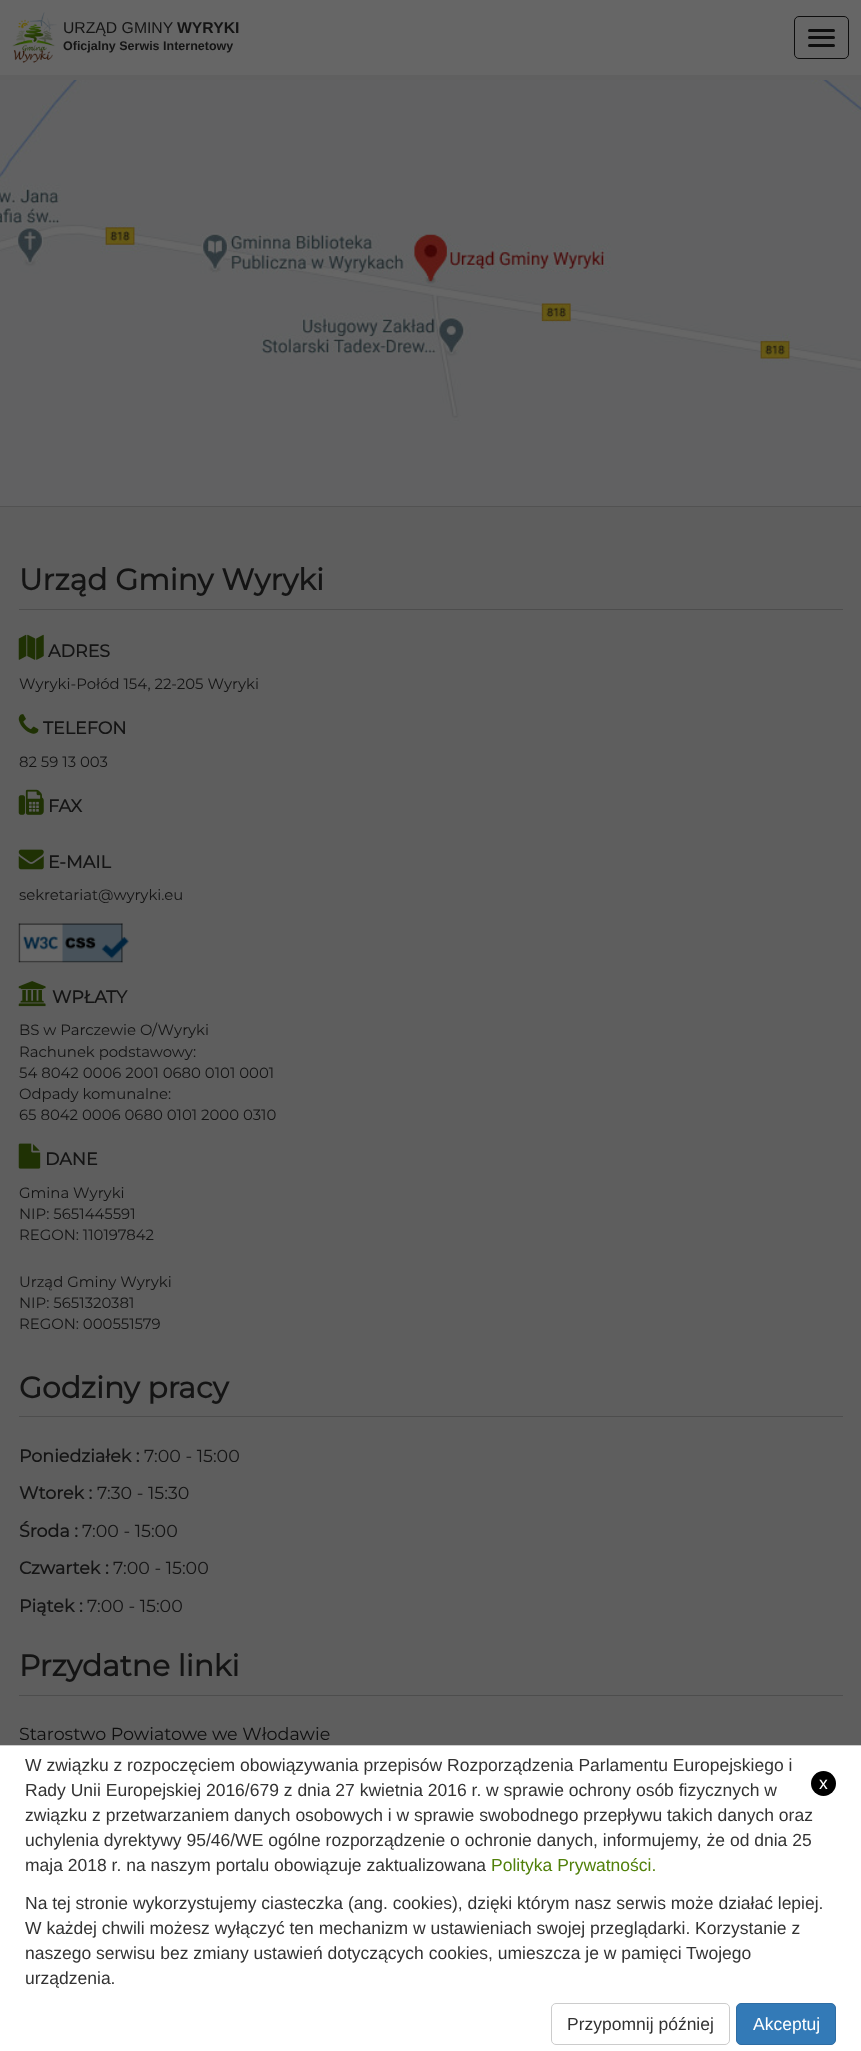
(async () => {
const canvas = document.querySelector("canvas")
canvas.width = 861
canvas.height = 2051
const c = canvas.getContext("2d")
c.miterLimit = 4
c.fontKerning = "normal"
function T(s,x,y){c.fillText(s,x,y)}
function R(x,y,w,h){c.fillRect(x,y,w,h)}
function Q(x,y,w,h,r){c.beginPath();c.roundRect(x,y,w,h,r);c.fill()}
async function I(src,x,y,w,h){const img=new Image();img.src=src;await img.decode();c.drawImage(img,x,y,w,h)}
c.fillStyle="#fff"
R(0,0,861,2051)
c.fillStyle="#666"
R(0,0,861,75)
c.fillStyle="#606060"
R(0,75,861,5)
await I("1.png",12,12,45,51)
c.font="15.75px Liberation Sans"
c.fillStyle="#141414"
T("URZĄD GMINY",63,33)
c.font="bold 15.75px Liberation Sans"
T("WYRYKI",177,33)
c.font="bold 12.5px Liberation Sans"
T("Oficjalny Serwis Internetowy",63,50)
c.beginPath()
c.roundRect(794.5,16.5,54,42,4.5)
c.strokeStyle="#0e0e0e"
c.stroke()
c.fillStyle="#0e0e0e"
Q(808,29,27,3,1.5)
Q(808,36,27,3,1.5)
Q(808,44,27,3,1.5)
await I("2.png",0,80,861,426)
c.fillStyle="#5e5e5e"
R(0,507,861,1238)
c.fillStyle="#525252"
R(0,506,861,1)
c.fillStyle="#4d4d4d"
R(19,609,824,1)
c.font="bold 29.75px Montserrat"
c.fillStyle="#141414"
T("Urząd Gminy Wyryki",19,590)
await I("3.png",18,634,26,26)
c.font="bold 17.5px Montserrat"
T("ADRES",48,657)
c.font="100 14.9px Montserrat"
T("Wyryki-Połód 154, 22-205 Wyryki",19,689)
await I("4.png",18,714,21,20)
c.font="bold 17.5px Montserrat"
T("TELEFON",43,734)
c.font="100 14.9px Montserrat"
T("82 59 13 003",19,767)
await I("5.png",18,789,26,26)
c.font="bold 17.5px Montserrat"
T("FAX",48,812)
await I("6.png",18,849,26,21)
T("E-MAIL",48,868)
c.font="100 14.9px Montserrat"
T("sekretariat@wyryki.eu",19,900)
await I("7.png",18,923,111,40)
await I("8.png",18,981,28,26)
c.font="bold 17.5px Montserrat"
T("WPŁATY",52,1003)
c.font="100 14.9px Montserrat"
T("BS w Parczewie O/Wyryki",19,1035)
T("Rachunek podstawowy:",19,1057)
T("54 8042 0006 2001 0680 0101 0001",19,1078)
T("Odpady komunalne:",19,1099)
T("65 8042 0006 0680 0101 2000 0310",19,1120)
await I("9.png",18,1143,23,26)
c.font="bold 17.5px Montserrat"
T("DANE",45,1165)
c.font="100 14.9px Montserrat"
T("Gmina Wyryki",19,1198)
T("NIP: 5651445591",19,1219)
T("REGON: 110197842",19,1240)
T("Urząd Gminy Wyryki",19,1287)
T("NIP: 5651320381",19,1308)
T("REGON: 000551579",19,1329)
c.fillStyle="#4d4d4d"
R(19,1416,824,1)
c.font="bold 29.75px Montserrat"
c.fillStyle="#141414"
T("Godziny pracy",19,1398)
c.font="bold 17.5px Montserrat"
T("Poniedziałek :",19,1462)
c.font="100 17.5px Montserrat"
T("7:00 - 15:00",144,1462)
c.font="bold 17.5px Montserrat"
T("Wtorek :",19,1499)
c.font="100 17.5px Montserrat"
T("7:30 - 15:30",97,1499)
c.font="bold 17.5px Montserrat"
T("Środa :",19,1537)
c.font="100 17.5px Montserrat"
T("7:00 - 15:00",82,1537)
c.font="bold 17.5px Montserrat"
T("Czwartek :",19,1574)
c.font="100 17.5px Montserrat"
T("7:00 - 15:00",113,1574)
c.font="bold 17.5px Montserrat"
T("Piątek :",19,1612)
c.font="100 17.5px Montserrat"
T("7:00 - 15:00",87,1612)
c.fillStyle="#4d4d4d"
R(19,1695,824,1)
c.font="bold 29.75px Montserrat"
c.fillStyle="#141414"
T("Przydatne linki",19,1676)
c.font="100 17.5px Montserrat"
c.fillStyle="#0e0e0e"
T("Starostwo Powiatowe we Włodawie",19,1740)
c.fillStyle="#ccc"
R(0,1745,861,1)
c.font="17.5px Liberation Sans"
c.fillStyle="#333"
T("W związku z rozpoczęciem obowiązywania przepisów Rozporządzenia Parlamentu Europejskiego i",25,1771)
T("Rady Unii Europejskiej 2016/679 z dnia 27 kwietnia 2016 r. w sprawie ochrony osób fizycznych w",25,1796)
T("związku z przetwarzaniem danych osobowych i w sprawie swobodnego przepływu takich danych oraz",25,1821)
T("uchylenia dyrektywy 95/46/WE ogólne rozporządzenie o ochronie danych, informujemy, że od dnia 25",25,1846)
T("maja 2018 r. na naszym portalu obowiązuje zaktualizowana",25,1871)
c.fillStyle="#51800a"
T("Polityka Prywatności.",491,1871)
c.fillStyle="#333"
T("Na tej stronie wykorzystujemy ciasteczka (ang. cookies), dzięki którym nasz serwis może działać lepiej.",25,1909)
T("W każdej chwili możesz wyłączyć ten mechanizm w ustawieniach swojej przeglądarki. Korzystanie z",25,1934)
T("naszego serwisu bez zmiany ustawień dotyczących cookies, umieszcza je w pamięci Twojego",25,1959)
T("urządzenia.",25,1984)
c.beginPath()
c.roundRect(551.5,2003.5,178,41,4.5)
c.strokeStyle="#ccc"
c.stroke()
T("Przypomnij później",567,2030)
c.fillStyle="#337ab7"
c.beginPath()
c.roundRect(736.5,2003.5,99,41,4.5)
c.fill()
c.strokeStyle="#2e6da4"
c.stroke()
c.fillStyle="#fff"
T("Akceptuj",753,2030)
c.fillStyle="#000"
c.beginPath()
c.arc(823.5,1783.5,12.5,0,7)
c.fill()
c.fillStyle="#fff"
T("x",819,1789)
})()
